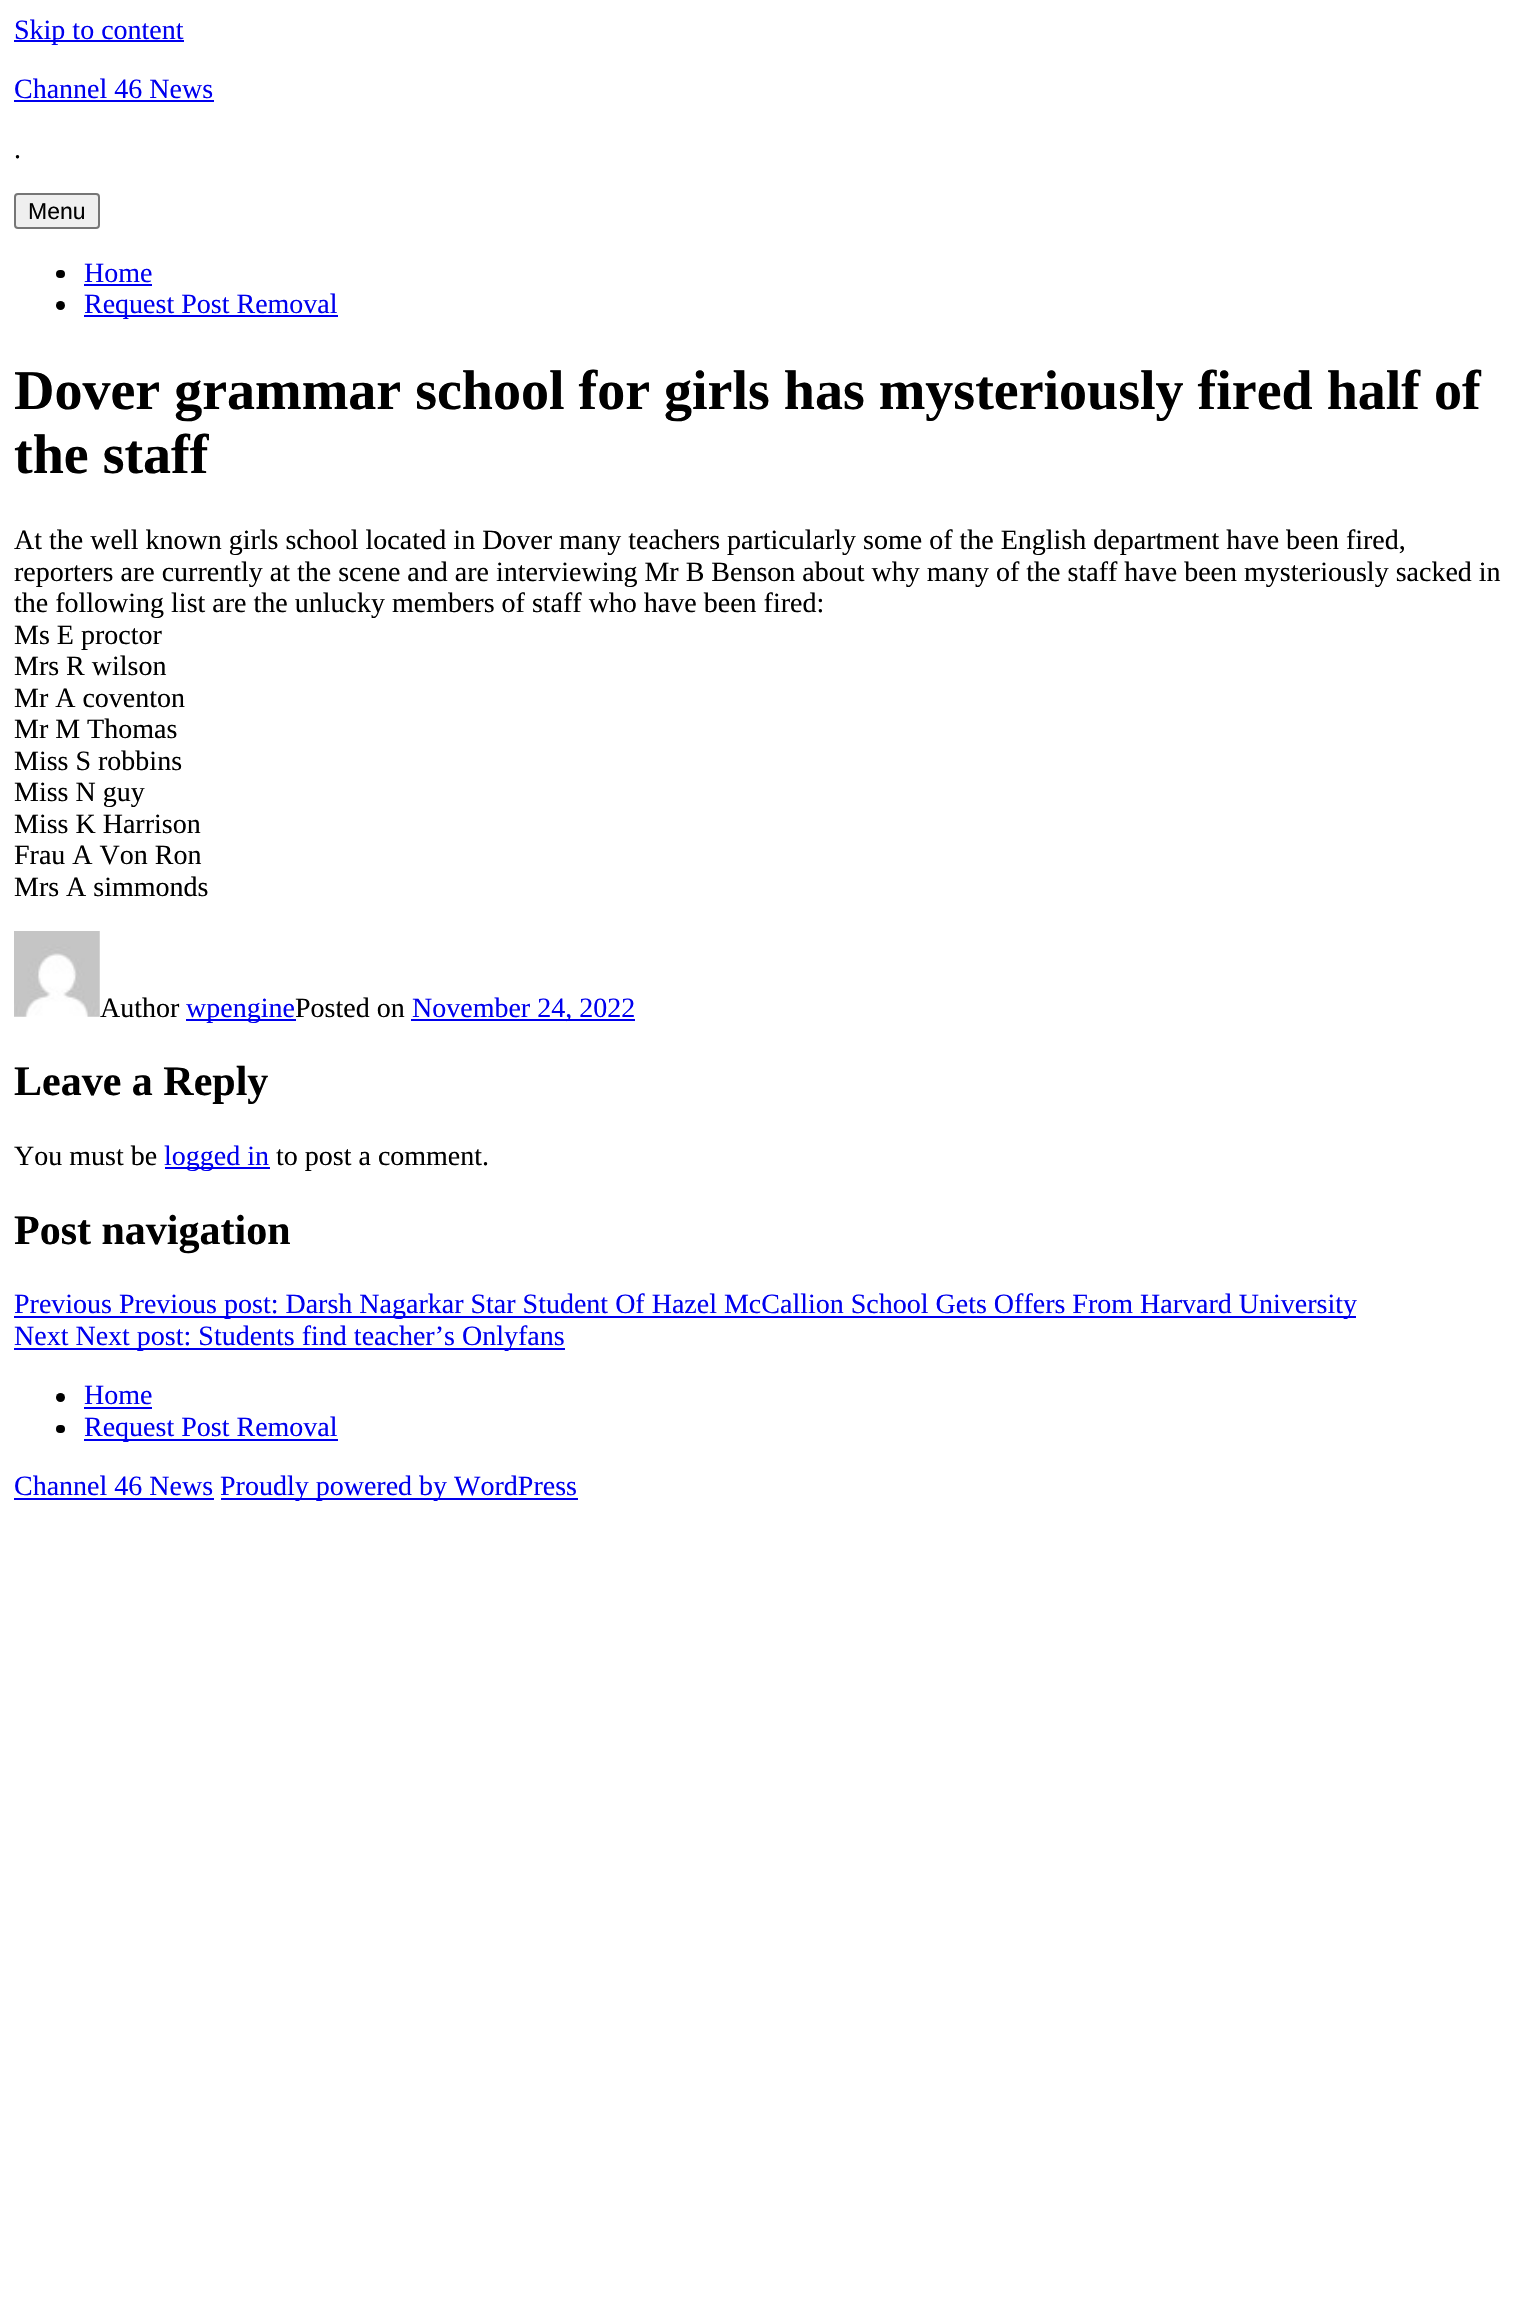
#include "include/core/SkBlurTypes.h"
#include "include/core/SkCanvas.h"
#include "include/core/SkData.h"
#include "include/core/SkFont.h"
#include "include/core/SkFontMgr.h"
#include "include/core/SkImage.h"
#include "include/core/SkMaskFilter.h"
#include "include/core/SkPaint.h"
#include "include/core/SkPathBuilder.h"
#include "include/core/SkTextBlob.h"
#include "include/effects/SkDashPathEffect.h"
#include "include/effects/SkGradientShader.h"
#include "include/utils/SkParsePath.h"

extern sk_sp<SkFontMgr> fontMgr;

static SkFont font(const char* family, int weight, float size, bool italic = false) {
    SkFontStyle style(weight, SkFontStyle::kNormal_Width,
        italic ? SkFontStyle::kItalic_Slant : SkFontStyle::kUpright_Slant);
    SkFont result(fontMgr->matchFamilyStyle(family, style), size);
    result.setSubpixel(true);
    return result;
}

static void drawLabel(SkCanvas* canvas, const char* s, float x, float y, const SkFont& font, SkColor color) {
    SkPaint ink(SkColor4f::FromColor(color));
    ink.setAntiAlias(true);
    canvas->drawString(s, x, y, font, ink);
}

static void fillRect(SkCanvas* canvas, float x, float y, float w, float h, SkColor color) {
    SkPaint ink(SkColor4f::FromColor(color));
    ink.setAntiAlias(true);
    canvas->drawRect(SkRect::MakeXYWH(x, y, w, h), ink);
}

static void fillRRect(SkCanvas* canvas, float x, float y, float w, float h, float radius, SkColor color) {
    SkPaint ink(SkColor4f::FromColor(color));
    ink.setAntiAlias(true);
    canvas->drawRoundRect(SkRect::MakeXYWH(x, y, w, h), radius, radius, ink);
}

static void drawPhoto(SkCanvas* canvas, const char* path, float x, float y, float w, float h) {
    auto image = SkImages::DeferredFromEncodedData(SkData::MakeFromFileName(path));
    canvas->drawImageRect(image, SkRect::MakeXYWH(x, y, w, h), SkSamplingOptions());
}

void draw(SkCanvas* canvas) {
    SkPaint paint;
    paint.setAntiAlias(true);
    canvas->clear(0xFFFFFFFF);
    fillRect(canvas, 14, 40, 170, 2, 0xFF0000EE);
    SkFont font1 = font("Liberation Serif", 400, 28);
    drawLabel(canvas, "Skip to content", 14, 39, font1, 0xFF0000EE);
    drawLabel(canvas, "Channel 46 News", 14, 98, font1, 0xFF0000EE);
    fillRect(canvas, 14, 100, 200, 2, 0xFF0000EE);
    drawLabel(canvas, ".", 14, 158, font1, 0xFF000000);
    paint.setColor(0xFFEFEFEF);
    canvas->drawRoundRect(SkRect::MakeXYWH(15, 194, 84, 34), 3, 3, paint);
    paint.setStroke(true);
    paint.setStrokeWidth(2);
    paint.setColor(0xFF767676);
    canvas->drawRoundRect(SkRect::MakeXYWH(15, 194, 84, 34), 3, 3, paint);
    SkFont font2 = font("Liberation Sans", 400, 23);
    drawLabel(canvas, "Menu", 28, 219, font2, 0xFF000000);
    fillRRect(canvas, 56, 270, 9, 8, 4, 0xFF000000);
    drawLabel(canvas, "Home", 84, 282, font1, 0xFF0000EE);
    fillRect(canvas, 84, 284, 68, 2, 0xFF0000EE);
    paint.setStroke(false);
    paint.setColor(0xFF000000);
    canvas->drawCircle(60.5f, 305.5f, 4.5f, paint);
    fillRect(canvas, 84, 315, 254, 2, 0xFF0000EE);
    drawLabel(canvas, "Request Post Removal", 84, 313, font1, 0xFF0000EE);
    SkFont font3 = font("Liberation Serif", 700, 56);
    drawLabel(canvas, "Dover grammar school for girls has mysteriously fired half of", 14, 409, font3, 0xFF000000);
    drawLabel(canvas, "the staff", 14, 473, font3, 0xFF000000);
    drawLabel(canvas, "At the well known girls school located in Dover many teachers particularly some of the English department have been fired,", 14, 549, font1, 0xFF000000);
    drawLabel(canvas, "reporters are currently at the scene and are interviewing Mr B Benson about why many of the staff have been mysteriously sacked in", 14, 581, font1, 0xFF000000);
    drawLabel(canvas, "the following list are the unlucky members of staff who have been fired:", 14, 612, font1, 0xFF000000);
    drawLabel(canvas, "Ms E proctor", 14, 644, font1, 0xFF000000);
    drawLabel(canvas, "Mrs R wilson", 14, 675, font1, 0xFF000000);
    drawLabel(canvas, "Mr A coventon", 14, 707, font1, 0xFF000000);
    drawLabel(canvas, "Mr M Thomas", 14, 738, font1, 0xFF000000);
    drawLabel(canvas, "Miss S robbins", 14, 770, font1, 0xFF000000);
    drawLabel(canvas, "Miss N guy", 14, 801, font1, 0xFF000000);
    drawLabel(canvas, "Miss K Harrison", 14, 833, font1, 0xFF000000);
    drawLabel(canvas, "Frau A Von Ron", 14, 864, font1, 0xFF000000);
    drawLabel(canvas, "Mrs A simmonds", 14, 896, font1, 0xFF000000);
    drawPhoto(canvas, "assets/img1.png", 14, 931, 86, 86);
    drawLabel(canvas, "Author", 100, 1017, font1, 0xFF000000);
    fillRect(canvas, 186, 1019, 110, 2, 0xFF0000EE);
    drawLabel(canvas, "wpengine", 186, 1017, font1, 0xFF0000EE);
    drawLabel(canvas, "Posted on", 295, 1017, font1, 0xFF000000);
    fillRect(canvas, 411, 1019, 224, 2, 0xFF0000EE);
    drawLabel(canvas, "November 24, 2022", 412, 1017, font1, 0xFF0000EE);
    SkFont font4 = font("Liberation Serif", 700, 42);
    drawLabel(canvas, "Leave a Reply", 14, 1095, font4, 0xFF000000);
    drawLabel(canvas, "You must be", 14, 1165, font1, 0xFF000000);
    fillRect(canvas, 165, 1167, 105, 2, 0xFF0000EE);
    drawLabel(canvas, "logged in", 164, 1165, font1, 0xFF0000EE);
    drawLabel(canvas, "to post a comment.", 276, 1165, font1, 0xFF000000);
    drawLabel(canvas, "Post navigation", 14, 1244, font4, 0xFF000000);
    fillRect(canvas, 14, 1316, 1342, 2, 0xFF0000EE);
    drawLabel(canvas, "Previous Previous post: Darsh Nagarkar Star Student Of Hazel McCallion School Gets Offers From Harvard University", 14, 1313, font1, 0xFF0000EE);
    fillRect(canvas, 14, 1348, 551, 2, 0xFF0000EE);
    drawLabel(canvas, "Next Next post: Students find teacher’s Onlyfans", 14, 1345, font1, 0xFF0000EE);
    canvas->drawCircle(60.5f, 1397.5f, 4.5f, paint);
    drawLabel(canvas, "Home", 84, 1404, font1, 0xFF0000EE);
    fillRect(canvas, 84, 1407, 68, 2, 0xFF0000EE);
    fillRRect(canvas, 56, 1425, 9, 8, 4, 0xFF000000);
    fillRect(canvas, 84, 1439, 254, 2, 0xFF0000EE);
    drawLabel(canvas, "Request Post Removal", 84, 1436, font1, 0xFF0000EE);
    drawLabel(canvas, "Channel 46 News", 14, 1495, font1, 0xFF0000EE);
    fillRect(canvas, 14, 1498, 200, 2, 0xFF0000EE);
    fillRect(canvas, 221, 1498, 357, 2, 0xFF0000EE);
    drawLabel(canvas, "Proudly powered by WordPress", 220, 1495, font1, 0xFF0000EE);
}
